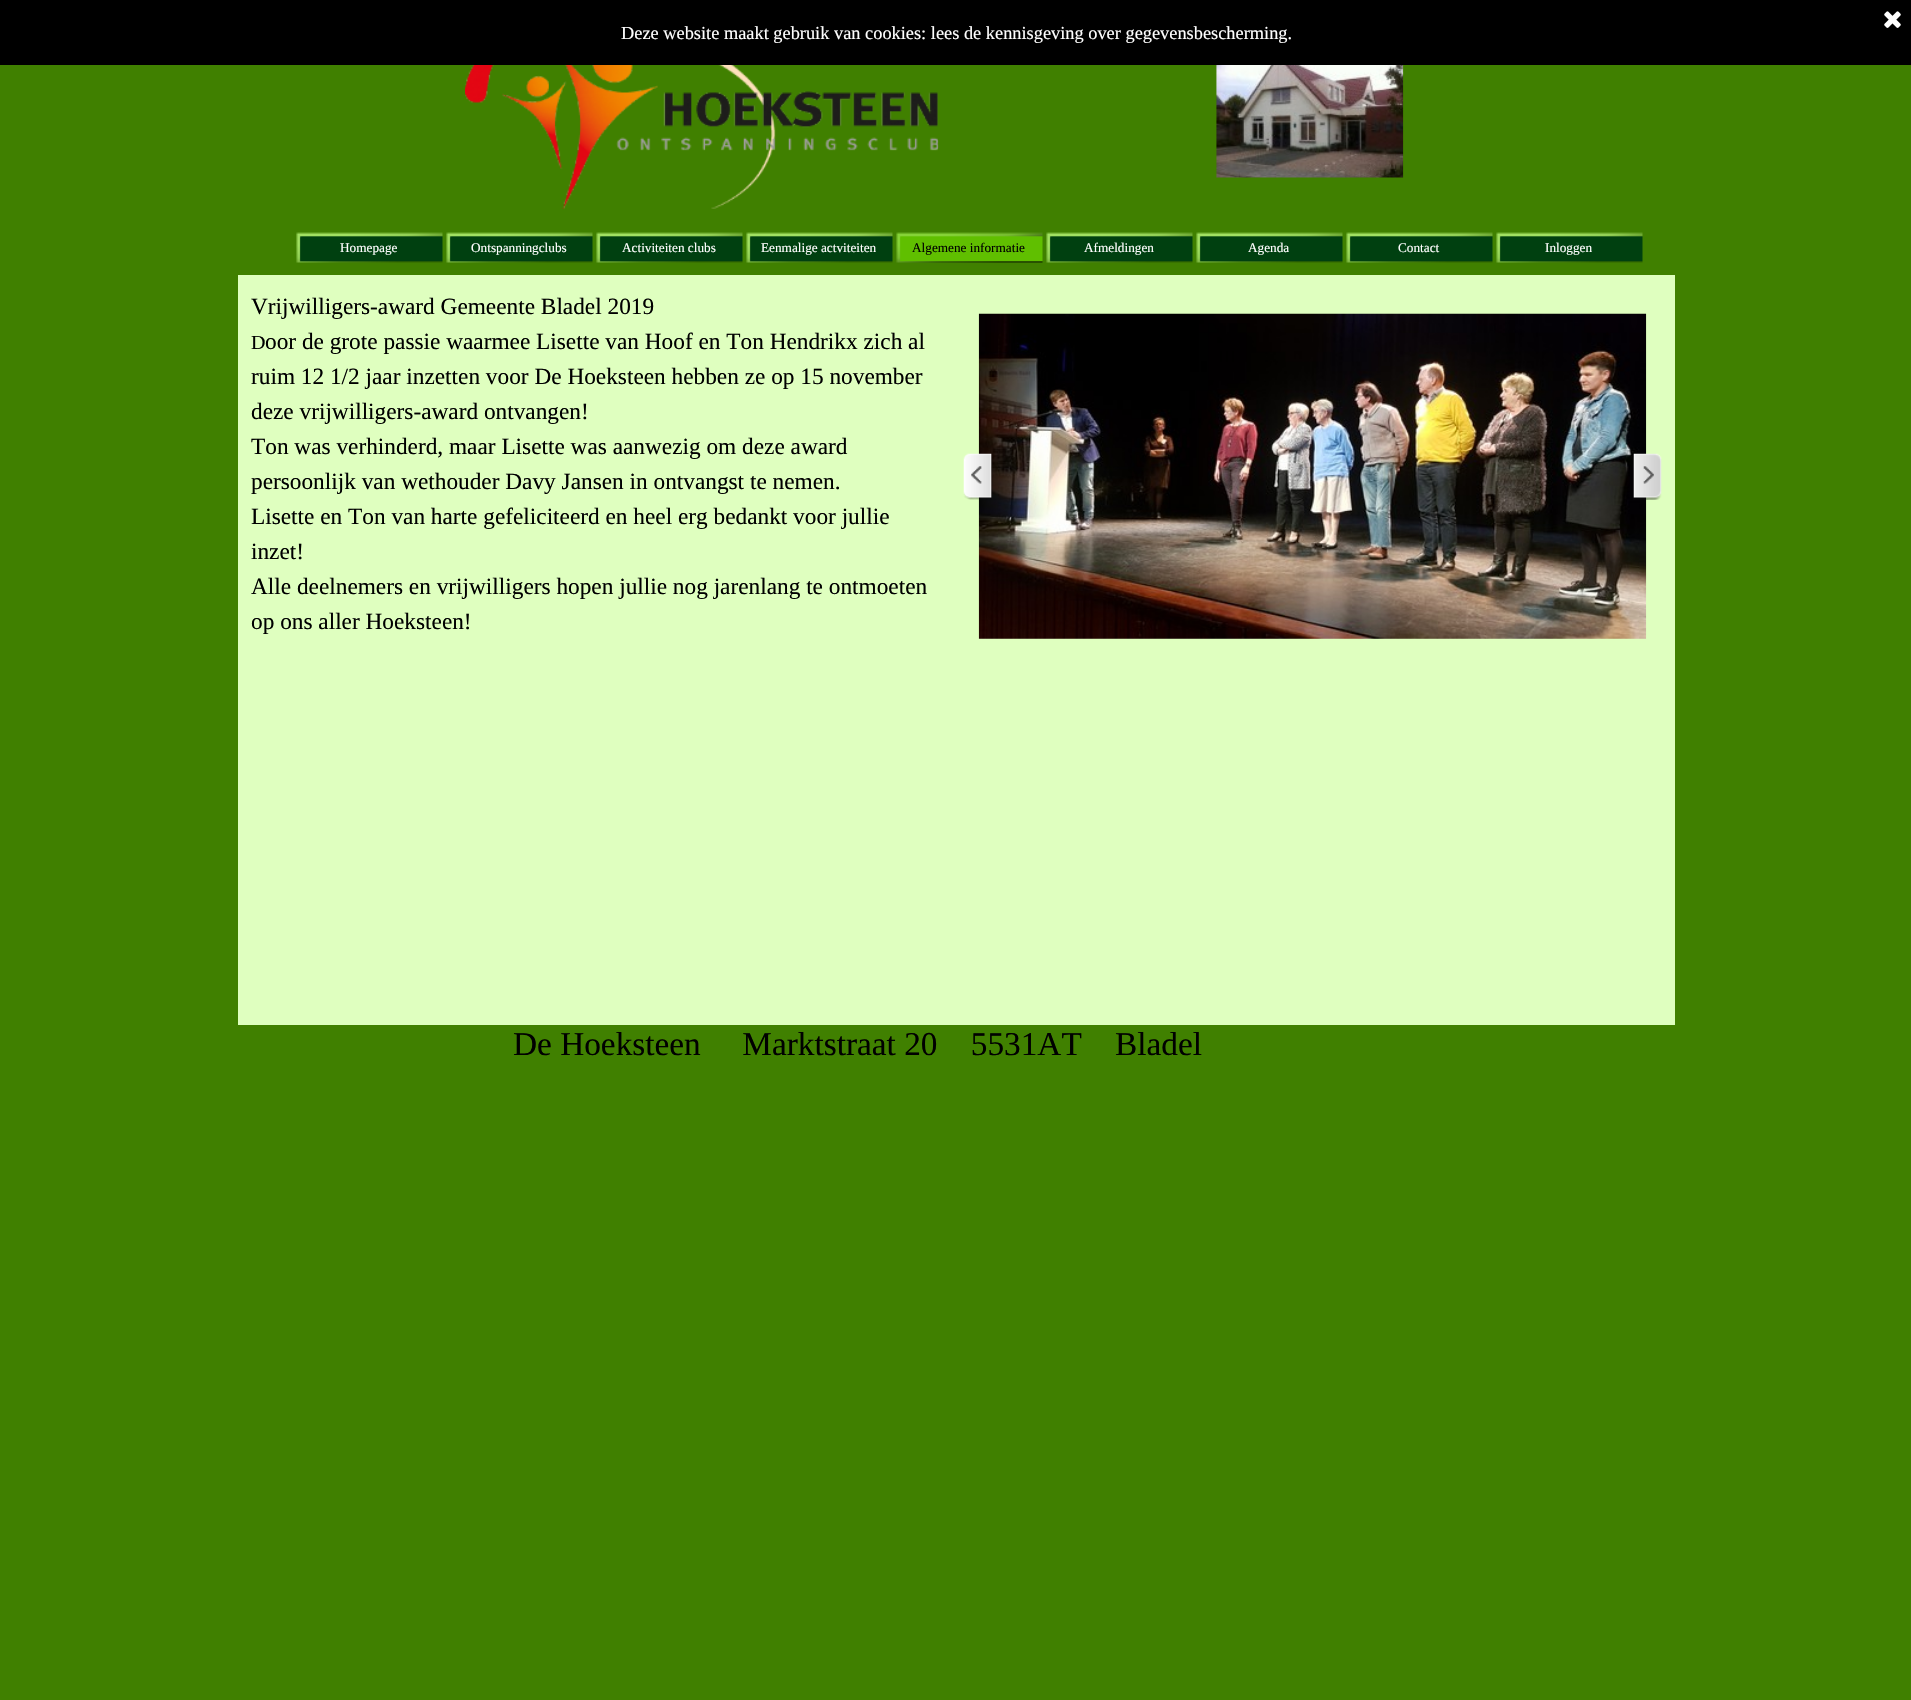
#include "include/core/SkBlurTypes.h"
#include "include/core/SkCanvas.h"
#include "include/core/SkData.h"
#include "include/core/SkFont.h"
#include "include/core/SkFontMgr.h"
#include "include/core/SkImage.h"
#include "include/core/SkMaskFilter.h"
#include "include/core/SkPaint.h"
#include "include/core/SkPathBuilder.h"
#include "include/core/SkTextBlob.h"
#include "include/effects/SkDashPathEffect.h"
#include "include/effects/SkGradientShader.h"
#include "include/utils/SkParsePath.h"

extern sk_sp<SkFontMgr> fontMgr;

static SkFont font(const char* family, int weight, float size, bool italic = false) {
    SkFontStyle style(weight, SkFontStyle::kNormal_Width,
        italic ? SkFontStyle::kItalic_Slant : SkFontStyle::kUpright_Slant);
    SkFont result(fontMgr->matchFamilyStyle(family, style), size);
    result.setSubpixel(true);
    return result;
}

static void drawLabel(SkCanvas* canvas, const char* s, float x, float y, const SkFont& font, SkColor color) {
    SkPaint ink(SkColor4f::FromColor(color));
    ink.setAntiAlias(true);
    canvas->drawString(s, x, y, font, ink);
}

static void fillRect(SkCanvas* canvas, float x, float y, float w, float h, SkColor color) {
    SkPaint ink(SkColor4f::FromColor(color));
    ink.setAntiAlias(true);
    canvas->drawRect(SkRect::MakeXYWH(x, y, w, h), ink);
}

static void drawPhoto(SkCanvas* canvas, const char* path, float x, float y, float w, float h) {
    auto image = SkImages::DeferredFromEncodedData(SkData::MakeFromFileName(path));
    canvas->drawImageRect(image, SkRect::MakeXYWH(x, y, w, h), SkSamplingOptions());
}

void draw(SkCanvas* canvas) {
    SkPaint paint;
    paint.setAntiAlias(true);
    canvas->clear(0xFF408000);
    fillRect(canvas, 0, 0, 1911, 65, 0xFF000000);
    drawPhoto(canvas, "assets/img1.png", 1884, 11, 17, 17);
    SkFont font1 = font("Liberation Serif", 400, 18.35f);
    drawLabel(canvas, "Deze website maakt gebruik van cookies: lees de kennisgeving over gegevensbescherming.", 621, 39, font1, 0xFFFFFFFF);
    drawPhoto(canvas, "assets/img2.png", 465, 65, 474, 144);
    drawPhoto(canvas, "assets/img3.png", 1216, 65, 188, 113);
    drawPhoto(canvas, "assets/img4.png", 296, 232, 147, 31);
    SkFont font2 = font("Liberation Serif", 400, 13.25f);
    drawLabel(canvas, "Homepage", 340, 252, font2, 0xFFFFFFFF);
    drawPhoto(canvas, "assets/img4.png", 446, 232, 147, 31);
    drawLabel(canvas, "Ontspanningclubs", 471, 252, font2, 0xFFFFFFFF);
    drawPhoto(canvas, "assets/img5.png", 596, 232, 147, 31);
    drawLabel(canvas, "Activiteiten clubs", 622, 252, font2, 0xFFFFFFFF);
    drawPhoto(canvas, "assets/img4.png", 746, 232, 147, 31);
    drawLabel(canvas, "Eenmalige actviteiten", 761, 252, font2, 0xFFFFFFFF);
    drawPhoto(canvas, "assets/img6.png", 896, 232, 147, 31);
    drawLabel(canvas, "Algemene informatie", 912, 252, font2, 0xFF000000);
    drawPhoto(canvas, "assets/img4.png", 1046, 232, 147, 31);
    drawLabel(canvas, "Afmeldingen", 1084, 252, font2, 0xFFFFFFFF);
    drawPhoto(canvas, "assets/img4.png", 1196, 232, 147, 31);
    drawLabel(canvas, "Agenda", 1248, 252, font2, 0xFFFFFFFF);
    drawPhoto(canvas, "assets/img4.png", 1346, 232, 147, 31);
    drawLabel(canvas, "Contact", 1398, 252, font2, 0xFFFFFFFF);
    drawPhoto(canvas, "assets/img4.png", 1496, 232, 147, 31);
    drawLabel(canvas, "Inloggen", 1545, 252, font2, 0xFFFFFFFF);
    fillRect(canvas, 238, 275, 1437, 750, 0xFFDFFFBF);
    SkFont font3 = font("Liberation Serif", 400, 23.3f);
    drawLabel(canvas, "Vrijwilligers-award Gemeente Bladel 2019", 251, 314, font3, 0xFF000000);
    SkFont font4 = font("Liberation Serif", 400, 20);
    drawLabel(canvas, "D", 251, 349, font4, 0xFF000000);
    drawLabel(canvas, "oor de grote passie waarmee Lisette van Hoof en Ton Hendrikx zich al", 265, 349, font3, 0xFF000000);
    drawLabel(canvas, "ruim 12 1/2 jaar inzetten voor De Hoeksteen hebben ze op 15 november", 251, 384, font3, 0xFF000000);
    drawLabel(canvas, "deze vrijwilligers-award ontvangen!", 251, 419, font3, 0xFF000000);
    drawLabel(canvas, "Ton was verhinderd, maar Lisette was aanwezig om deze award", 251, 454, font3, 0xFF000000);
    drawLabel(canvas, "persoonlijk van wethouder Davy Jansen in ontvangst te nemen.", 251, 489, font3, 0xFF000000);
    drawLabel(canvas, "Lisette en Ton van harte gefeliciteerd en heel erg bedankt voor jullie", 251, 524, font3, 0xFF000000);
    drawLabel(canvas, "inzet!", 251, 559, font3, 0xFF000000);
    drawLabel(canvas, "Alle deelnemers en vrijwilligers hopen jullie nog jarenlang te ontmoeten", 251, 594, font3, 0xFF000000);
    drawLabel(canvas, "op ons aller Hoeksteen!", 251, 629, font3, 0xFF000000);
    drawPhoto(canvas, "assets/img7.png", 978, 313, 669, 326);
    drawPhoto(canvas, "assets/img8.png", 963, 453, 30, 47);
    drawPhoto(canvas, "assets/img9.png", 1633, 453, 29, 47);
    SkFont font5 = font("Liberation Serif", 400, 33.3f);
    drawLabel(canvas, "De Hoeksteen     Marktstraat 20    5531AT    Bladel", 513, 1055, font5, 0xFF000000);
}
